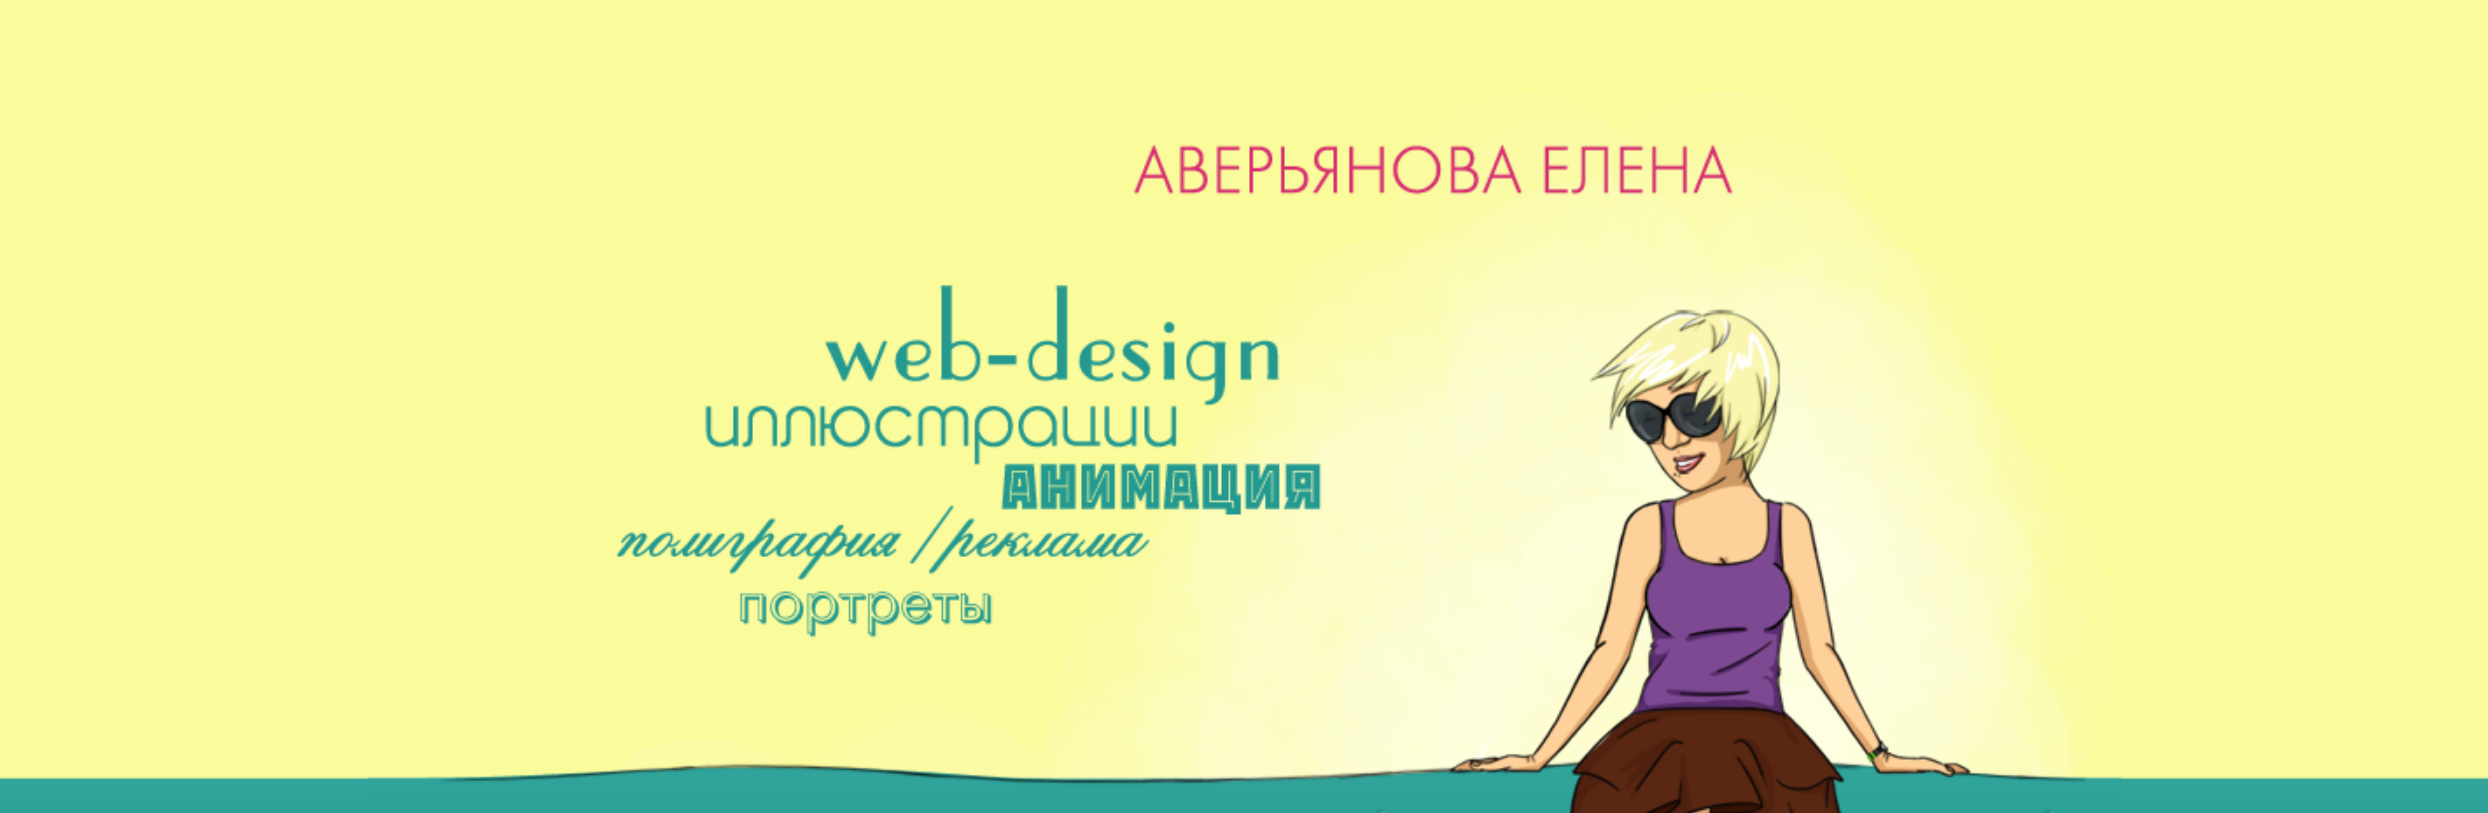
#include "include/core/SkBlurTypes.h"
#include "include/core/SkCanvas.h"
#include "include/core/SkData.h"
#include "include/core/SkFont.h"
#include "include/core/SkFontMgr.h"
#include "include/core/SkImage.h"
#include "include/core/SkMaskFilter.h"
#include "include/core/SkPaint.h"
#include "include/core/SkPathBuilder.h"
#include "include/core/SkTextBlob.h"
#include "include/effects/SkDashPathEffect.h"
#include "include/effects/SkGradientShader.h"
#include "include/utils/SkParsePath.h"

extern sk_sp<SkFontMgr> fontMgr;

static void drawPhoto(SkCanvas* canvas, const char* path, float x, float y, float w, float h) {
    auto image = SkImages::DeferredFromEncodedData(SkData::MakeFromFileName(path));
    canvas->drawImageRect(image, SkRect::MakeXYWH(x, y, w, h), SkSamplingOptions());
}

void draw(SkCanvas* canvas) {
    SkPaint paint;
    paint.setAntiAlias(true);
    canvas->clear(0xFFFAFB9B);
    drawPhoto(canvas, "assets/img1.png", 0, 776, 2488, 37);
    drawPhoto(canvas, "assets/img2.png", 367, 91, 1754, 722);
    drawPhoto(canvas, "assets/img3.png", 1133, 144, 600, 51);
    drawPhoto(canvas, "assets/img4.png", 824, 284, 456, 122);
    drawPhoto(canvas, "assets/img5.png", 704, 405, 473, 61);
    drawPhoto(canvas, "assets/img6.png", 1000, 463, 322, 52);
    drawPhoto(canvas, "assets/img7.png", 615, 505, 536, 75);
    drawPhoto(canvas, "assets/img8.png", 739, 591, 254, 47);
}
